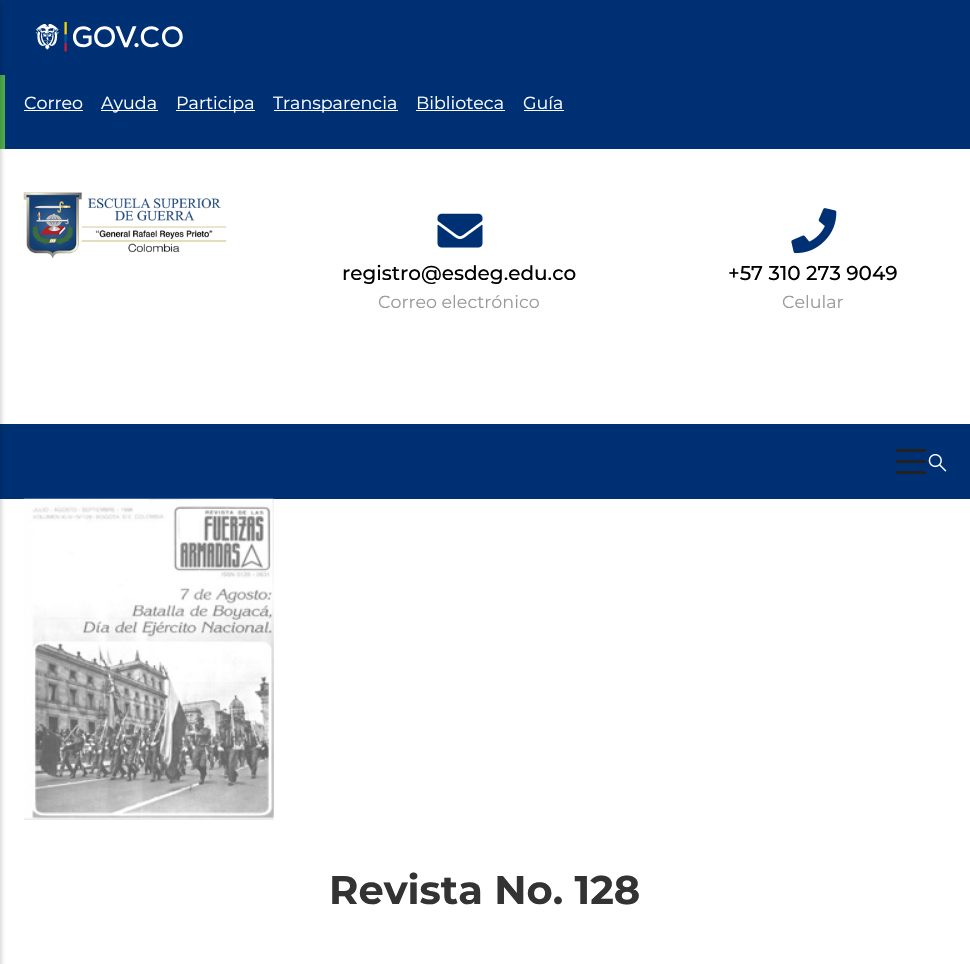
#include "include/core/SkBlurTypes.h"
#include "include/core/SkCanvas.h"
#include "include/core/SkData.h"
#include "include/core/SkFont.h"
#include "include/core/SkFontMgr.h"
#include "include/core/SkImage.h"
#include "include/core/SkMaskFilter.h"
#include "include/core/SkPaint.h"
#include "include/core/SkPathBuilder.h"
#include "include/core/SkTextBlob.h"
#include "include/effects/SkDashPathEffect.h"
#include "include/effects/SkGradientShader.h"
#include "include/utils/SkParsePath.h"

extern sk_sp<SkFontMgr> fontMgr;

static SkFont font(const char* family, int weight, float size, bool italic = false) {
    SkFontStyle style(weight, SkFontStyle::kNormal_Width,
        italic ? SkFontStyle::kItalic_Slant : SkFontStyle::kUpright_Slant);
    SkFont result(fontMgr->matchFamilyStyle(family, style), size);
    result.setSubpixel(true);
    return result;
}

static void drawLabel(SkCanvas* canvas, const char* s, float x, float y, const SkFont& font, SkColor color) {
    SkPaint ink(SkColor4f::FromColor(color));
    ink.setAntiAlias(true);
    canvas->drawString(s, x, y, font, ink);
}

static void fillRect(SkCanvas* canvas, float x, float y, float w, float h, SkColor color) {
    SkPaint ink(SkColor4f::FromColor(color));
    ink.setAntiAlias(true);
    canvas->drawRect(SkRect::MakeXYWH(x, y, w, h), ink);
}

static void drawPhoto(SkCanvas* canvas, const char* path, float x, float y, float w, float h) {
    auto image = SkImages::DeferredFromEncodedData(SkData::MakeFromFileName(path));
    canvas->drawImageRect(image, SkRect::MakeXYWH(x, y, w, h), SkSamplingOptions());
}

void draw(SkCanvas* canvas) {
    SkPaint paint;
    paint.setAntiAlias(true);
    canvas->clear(0xFFFFFFFF);
    fillRect(canvas, 0, 424, 970, 75, 0xFF003074);
    fillRect(canvas, 0, 0, 970, 149, 0xFF003074);
    fillRect(canvas, 0, 75, 5, 74, 0xFF50AF4D);
    paint.setColor(0x33000000);
    paint.setMaskFilter(SkMaskFilter::MakeBlur(kNormal_SkBlurStyle, 2.5f));
    canvas->drawRect(SkRect::MakeXYWH(-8, 4, 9, 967), paint);
    paint.setMaskFilter(nullptr);
    fillRect(canvas, 896, 449, 30, 3, 0xFF222222);
    fillRect(canvas, 896, 460, 30, 3, 0xFF222222);
    fillRect(canvas, 896, 471, 30, 3, 0xFF222222);
    drawPhoto(canvas, "assets/img1.png", 928, 454, 19, 18);
    drawPhoto(canvas, "assets/img2.png", 35, 21, 148, 31);
    SkFont font1 = font("Montserrat", 400, 17.5f);
    drawLabel(canvas, "Correo", 24, 109, font1, 0xFFFFFFFF);
    fillRect(canvas, 24, 110, 59, 1, 0xFFFFFFFF);
    fillRect(canvas, 101, 110, 57, 1, 0xFFFFFFFF);
    drawLabel(canvas, "Ayuda", 101, 109, font1, 0xFFFFFFFF);
    fillRect(canvas, 176, 110, 79, 1, 0xFFFFFFFF);
    drawLabel(canvas, "Participa", 176, 109, font1, 0xFFFFFFFF);
    fillRect(canvas, 274, 110, 124, 1, 0xFFFFFFFF);
    drawLabel(canvas, "Transparencia", 273, 109, font1, 0xFFFFFFFF);
    drawLabel(canvas, "Biblioteca", 416, 109, font1, 0xFFFFFFFF);
    fillRect(canvas, 416, 110, 89, 1, 0xFFFFFFFF);
    drawLabel(canvas, "Guía", 523, 109, font1, 0xFFFFFFFF);
    fillRect(canvas, 524, 110, 40, 1, 0xFFFFFFFF);
    drawPhoto(canvas, "assets/img3.png", 23, 192, 204, 66);
    drawPhoto(canvas, "assets/img4.png", 437, 213, 46, 35);
    SkFont font2 = font("Montserrat", 500, 20);
    drawLabel(canvas, "registro@esdeg.edu.co", 342, 280, font2, 0xFF000000);
    drawLabel(canvas, "Correo electrónico", 378, 308, font1, 0xFF999999);
    drawPhoto(canvas, "assets/img5.png", 791, 208, 46, 46);
    drawLabel(canvas, "+57 310 273 9049", 728, 280, font2, 0xFF000000);
    drawLabel(canvas, "Celular", 782, 308, font1, 0xFF999999);
    drawPhoto(canvas, "assets/img6.png", 23, 498, 251, 322);
    SkFont font3 = font("Montserrat", 700, 40);
    drawLabel(canvas, "Revista No. 128", 329, 904, font3, 0xFF333333);
}
